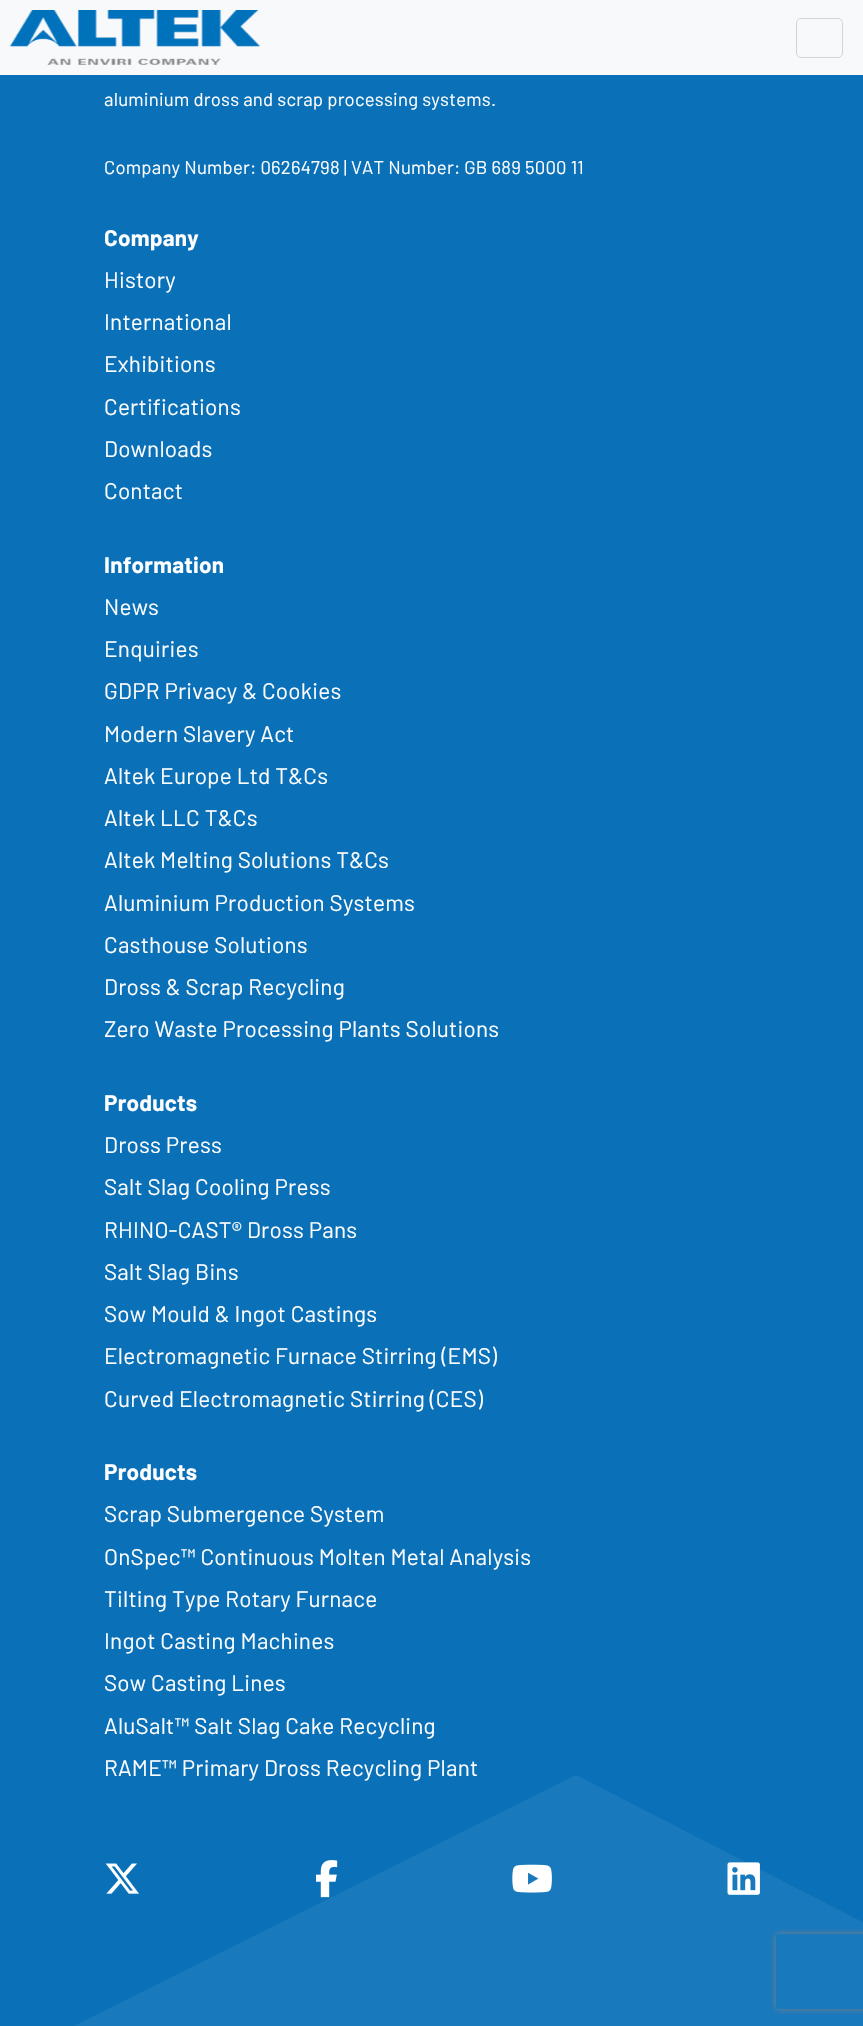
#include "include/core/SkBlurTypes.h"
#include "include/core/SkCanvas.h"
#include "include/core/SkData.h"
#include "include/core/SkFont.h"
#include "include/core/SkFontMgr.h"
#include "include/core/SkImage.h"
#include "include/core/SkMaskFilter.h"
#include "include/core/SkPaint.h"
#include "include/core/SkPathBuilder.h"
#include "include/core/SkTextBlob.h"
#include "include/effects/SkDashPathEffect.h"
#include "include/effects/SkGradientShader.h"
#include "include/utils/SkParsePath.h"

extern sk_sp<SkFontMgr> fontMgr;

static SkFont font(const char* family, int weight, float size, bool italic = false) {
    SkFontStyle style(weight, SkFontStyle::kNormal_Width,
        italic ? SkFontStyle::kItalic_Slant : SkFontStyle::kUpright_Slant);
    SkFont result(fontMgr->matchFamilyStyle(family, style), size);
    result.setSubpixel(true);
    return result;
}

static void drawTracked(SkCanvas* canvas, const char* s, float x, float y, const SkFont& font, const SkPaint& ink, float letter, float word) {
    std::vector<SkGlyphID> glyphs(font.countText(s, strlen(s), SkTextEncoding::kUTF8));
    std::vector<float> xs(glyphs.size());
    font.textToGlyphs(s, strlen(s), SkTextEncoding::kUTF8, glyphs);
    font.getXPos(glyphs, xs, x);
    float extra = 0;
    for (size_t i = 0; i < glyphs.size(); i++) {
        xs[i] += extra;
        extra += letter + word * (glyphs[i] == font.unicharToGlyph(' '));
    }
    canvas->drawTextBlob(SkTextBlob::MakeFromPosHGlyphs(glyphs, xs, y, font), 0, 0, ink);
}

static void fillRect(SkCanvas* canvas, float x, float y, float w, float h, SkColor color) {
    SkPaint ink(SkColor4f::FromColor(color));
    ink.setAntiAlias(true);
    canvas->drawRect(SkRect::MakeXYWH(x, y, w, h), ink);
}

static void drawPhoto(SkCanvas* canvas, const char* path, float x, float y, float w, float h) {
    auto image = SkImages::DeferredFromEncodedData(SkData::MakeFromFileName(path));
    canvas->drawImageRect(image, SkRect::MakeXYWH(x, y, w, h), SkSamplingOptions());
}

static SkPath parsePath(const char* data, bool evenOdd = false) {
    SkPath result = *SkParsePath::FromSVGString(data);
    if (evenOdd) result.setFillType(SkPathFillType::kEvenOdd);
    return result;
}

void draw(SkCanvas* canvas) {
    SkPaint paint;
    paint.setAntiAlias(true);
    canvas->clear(0xFF0A70B8);
    fillRect(canvas, 0, 0, 863, 75, 0xFFF8F9FA);
    drawPhoto(canvas, "assets/img1.png", 9, 10, 251, 55);
    paint.setStroke(true);
    paint.setStrokeWidth(1);
    paint.setColor(0xFFD3D4D5);
    canvas->drawRoundRect(SkRect::MakeXYWH(796.5f, 18.5f, 46, 39), 4.5f, 4.5f, paint);
    SkFont font1 = font("Barlow", 400, 18.5f);
    paint.setStroke(false);
    paint.setColor(0xFFFFFFFF);
    drawTracked(canvas, "aluminium dross and scrap processing systems.", 104, 106, font1, paint, 0.22f, 0);
    drawTracked(canvas, "Company Number: 06264798 | VAT Number: GB 689 5000 11", 104, 174, font1, paint, 0.22f, 0);
    SkFont font2 = font("Barlow", 700, 22.5f);
    drawTracked(canvas, "Company", 104, 246, font2, paint, 0.22f, 0);
    SkFont font3 = font("Barlow", 400, 22.5f);
    drawTracked(canvas, "History", 104, 288, font3, paint, 0.22f, 0);
    drawTracked(canvas, "International", 104, 330, font3, paint, 0.22f, 0);
    drawTracked(canvas, "Exhibitions", 104, 372, font3, paint, 0.22f, 0);
    drawTracked(canvas, "Certifications", 104, 415, font3, paint, 0.22f, 0);
    drawTracked(canvas, "Downloads", 104, 457, font3, paint, 0.22f, 0);
    drawTracked(canvas, "Contact", 104, 499, font3, paint, 0.22f, 0);
    drawTracked(canvas, "Information", 104, 573, font2, paint, 0.22f, 0);
    drawTracked(canvas, "News", 104, 615, font3, paint, 0.22f, 0);
    drawTracked(canvas, "Enquiries", 104, 657, font3, paint, 0.22f, 0);
    drawTracked(canvas, "GDPR Privacy & Cookies", 104, 699, font3, paint, 0.22f, 0);
    drawTracked(canvas, "Modern Slavery Act", 104, 742, font3, paint, 0.22f, 0);
    drawTracked(canvas, "Altek Europe Ltd T&Cs", 104, 784, font3, paint, 0.22f, 0);
    drawTracked(canvas, "Altek LLC T&Cs", 104, 826, font3, paint, 0.22f, 0);
    drawTracked(canvas, "Altek Melting Solutions T&Cs", 104, 868, font3, paint, 0.22f, 0);
    drawTracked(canvas, "Aluminium Production Systems", 104, 911, font3, paint, 0.22f, 0);
    drawTracked(canvas, "Casthouse Solutions", 104, 953, font3, paint, 0.22f, 0);
    drawTracked(canvas, "Dross & Scrap Recycling", 104, 995, font3, paint, 0.22f, 0);
    drawTracked(canvas, "Zero Waste Processing Plants Solutions", 104, 1037, font3, paint, 0.22f, 0);
    drawTracked(canvas, "Products", 104, 1111, font2, paint, 0.22f, 0);
    drawTracked(canvas, "Dross Press", 104, 1153, font3, paint, 0.22f, 0);
    drawTracked(canvas, "Salt Slag Cooling Press", 104, 1195, font3, paint, 0.22f, 0);
    drawTracked(canvas, "RHINO-CAST® Dross Pans", 104, 1238, font3, paint, 0.22f, 0);
    drawTracked(canvas, "Salt Slag Bins", 104, 1280, font3, paint, 0.22f, 0);
    drawTracked(canvas, "Sow Mould & Ingot Castings", 104, 1322, font3, paint, 0.22f, 0);
    drawTracked(canvas, "Electromagnetic Furnace Stirring (EMS)", 104, 1364, font3, paint, 0.22f, 0);
    drawTracked(canvas, "Curved Electromagnetic Stirring (CES)", 104, 1407, font3, paint, 0.22f, 0);
    drawTracked(canvas, "Products", 104, 1480, font2, paint, 0.22f, 0);
    drawTracked(canvas, "Scrap Submergence System", 104, 1522, font3, paint, 0.22f, 0);
    drawTracked(canvas, "OnSpec™ Continuous Molten Metal Analysis", 104, 1565, font3, paint, 0.22f, 0);
    drawTracked(canvas, "Tilting Type Rotary Furnace", 104, 1607, font3, paint, 0.22f, 0);
    drawTracked(canvas, "Ingot Casting Machines", 104, 1649, font3, paint, 0.22f, 0);
    drawTracked(canvas, "Sow Casting Lines", 104, 1691, font3, paint, 0.22f, 0);
    drawTracked(canvas, "AluSalt™ Salt Slag Cake Recycling", 104, 1734, font3, paint, 0.22f, 0);
    paint.setColor(0xFF1879BD);
    canvas->drawPath(parsePath("M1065 2026H74L576 1775Z"), paint);
    paint.setColor(0xFFFFFFFF);
    drawTracked(canvas, "RAME™ Primary Dross Recycling Plant", 104, 1776, font3, paint, 0.22f, 0);
    drawPhoto(canvas, "assets/img2.png", 105, 1863, 34, 31);
    drawPhoto(canvas, "assets/img3.png", 316, 1860, 22, 38);
    drawPhoto(canvas, "assets/img4.png", 512, 1864, 40, 29);
    drawPhoto(canvas, "assets/img5.png", 727, 1862, 33, 33);
    canvas->save();
    canvas->clipPath(parsePath("M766 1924H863V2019H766ZM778.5 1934H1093.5C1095 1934 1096 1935 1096 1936.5V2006.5C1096 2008 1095 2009 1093.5 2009H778.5C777 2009 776 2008 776 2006.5V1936.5C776 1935 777 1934 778.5 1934Z", true), true);
    paint.setColor(0xFF808080);
    paint.setMaskFilter(SkMaskFilter::MakeBlur(kNormal_SkBlurStyle, 3));
    canvas->drawRoundRect(SkRect::MakeXYWH(776, 1934, 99, 75), 2.5f, 2.5f, paint);
    paint.setMaskFilter(nullptr);
    canvas->restore();
}
